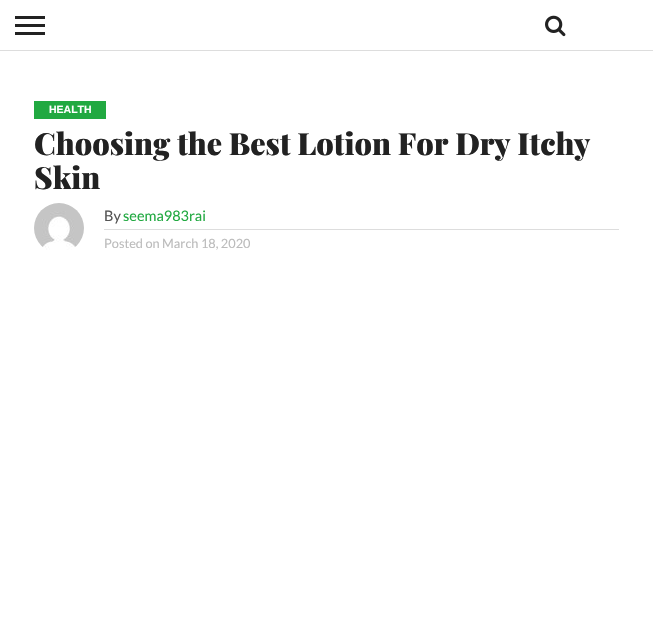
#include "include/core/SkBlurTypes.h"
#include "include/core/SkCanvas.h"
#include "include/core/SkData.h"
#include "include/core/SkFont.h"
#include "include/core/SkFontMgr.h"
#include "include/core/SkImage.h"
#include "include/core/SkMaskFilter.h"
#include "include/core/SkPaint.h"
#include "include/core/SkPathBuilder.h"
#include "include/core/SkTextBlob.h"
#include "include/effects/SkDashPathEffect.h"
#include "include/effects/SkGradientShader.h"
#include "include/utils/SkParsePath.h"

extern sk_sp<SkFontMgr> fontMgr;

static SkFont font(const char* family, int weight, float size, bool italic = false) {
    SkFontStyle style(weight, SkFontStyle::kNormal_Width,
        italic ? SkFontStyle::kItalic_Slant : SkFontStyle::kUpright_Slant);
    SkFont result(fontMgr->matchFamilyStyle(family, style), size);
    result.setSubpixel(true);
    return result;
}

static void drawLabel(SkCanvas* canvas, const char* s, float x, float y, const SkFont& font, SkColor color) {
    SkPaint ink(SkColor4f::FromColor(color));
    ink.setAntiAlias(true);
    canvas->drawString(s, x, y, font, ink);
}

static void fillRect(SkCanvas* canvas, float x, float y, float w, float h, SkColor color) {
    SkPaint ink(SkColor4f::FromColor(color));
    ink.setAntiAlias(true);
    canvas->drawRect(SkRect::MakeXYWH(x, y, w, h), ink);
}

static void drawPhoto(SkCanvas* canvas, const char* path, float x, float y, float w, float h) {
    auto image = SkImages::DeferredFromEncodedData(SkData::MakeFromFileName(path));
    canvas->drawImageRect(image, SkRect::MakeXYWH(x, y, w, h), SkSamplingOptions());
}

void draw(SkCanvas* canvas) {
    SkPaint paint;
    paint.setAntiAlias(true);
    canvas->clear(0xFFFFFFFF);
    fillRect(canvas, 0, 50, 653, 1, 0xFFDDDDDD);
    fillRect(canvas, 15, 16, 30, 3, 0xFF222222);
    fillRect(canvas, 15, 24, 30, 3, 0xFF222222);
    fillRect(canvas, 15, 32, 30, 3, 0xFF222222);
    drawPhoto(canvas, "assets/img1.png", 545, 15, 21, 22);
    fillRect(canvas, 34, 101, 72, 18, 0xFF21A941);
    SkFont font1 = font("Liberation Sans", 700, 10.5f);
    drawLabel(canvas, "HEALTH", 49, 113, font1, 0xFFFFFFFF);
    SkFont font2 = font("Playfair Display", 900, 30.4f);
    drawLabel(canvas, "Choosing the Best Lotion For Dry Itchy", 34, 155, font2, 0xFF222222);
    drawLabel(canvas, "Skin", 34, 189, font2, 0xFF222222);
    drawPhoto(canvas, "assets/img2.png", 34, 203, 50, 47);
    fillRect(canvas, 104, 229, 515, 1, 0xFFDDDDDD);
    SkFont font3 = font("Lato", 400, 14.5f);
    drawLabel(canvas, "By", 104, 221, font3, 0xFF555555);
    drawLabel(canvas, "seema983rai", 123, 221, font3, 0xFF21A941);
    SkFont font4 = font("Lato", 400, 12.75f);
    drawLabel(canvas, "Posted on March 18, 2020", 104, 248, font4, 0xFFBBBBBB);
}
